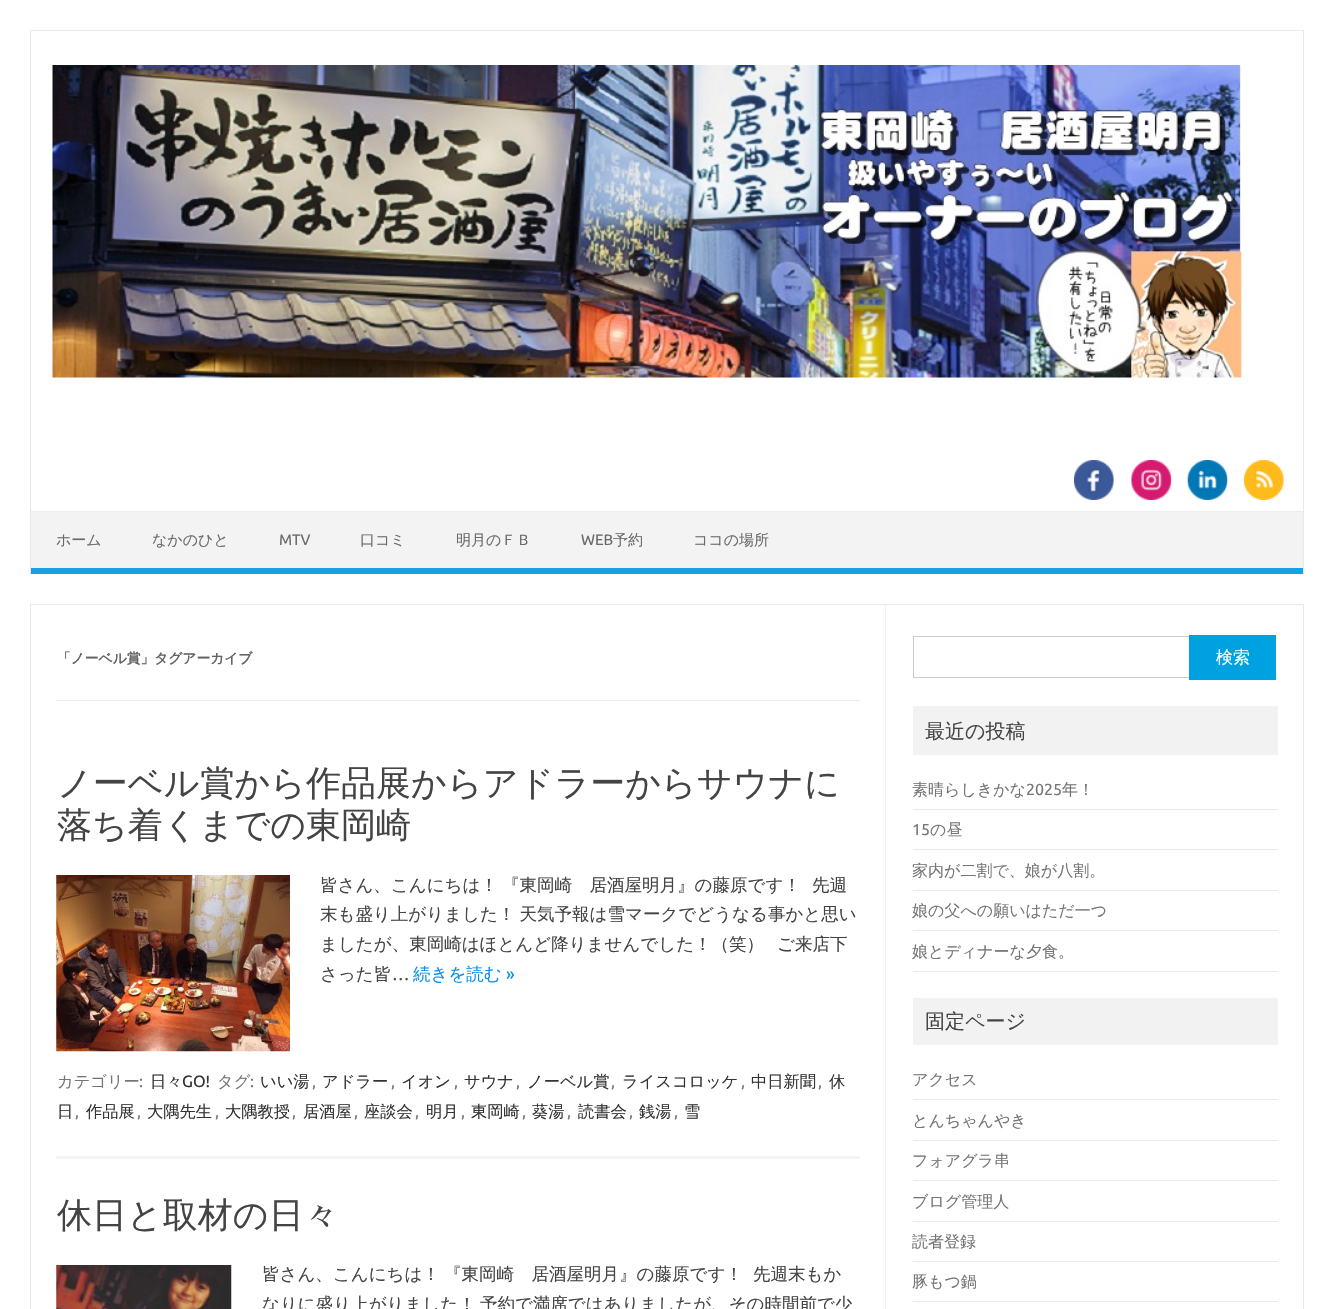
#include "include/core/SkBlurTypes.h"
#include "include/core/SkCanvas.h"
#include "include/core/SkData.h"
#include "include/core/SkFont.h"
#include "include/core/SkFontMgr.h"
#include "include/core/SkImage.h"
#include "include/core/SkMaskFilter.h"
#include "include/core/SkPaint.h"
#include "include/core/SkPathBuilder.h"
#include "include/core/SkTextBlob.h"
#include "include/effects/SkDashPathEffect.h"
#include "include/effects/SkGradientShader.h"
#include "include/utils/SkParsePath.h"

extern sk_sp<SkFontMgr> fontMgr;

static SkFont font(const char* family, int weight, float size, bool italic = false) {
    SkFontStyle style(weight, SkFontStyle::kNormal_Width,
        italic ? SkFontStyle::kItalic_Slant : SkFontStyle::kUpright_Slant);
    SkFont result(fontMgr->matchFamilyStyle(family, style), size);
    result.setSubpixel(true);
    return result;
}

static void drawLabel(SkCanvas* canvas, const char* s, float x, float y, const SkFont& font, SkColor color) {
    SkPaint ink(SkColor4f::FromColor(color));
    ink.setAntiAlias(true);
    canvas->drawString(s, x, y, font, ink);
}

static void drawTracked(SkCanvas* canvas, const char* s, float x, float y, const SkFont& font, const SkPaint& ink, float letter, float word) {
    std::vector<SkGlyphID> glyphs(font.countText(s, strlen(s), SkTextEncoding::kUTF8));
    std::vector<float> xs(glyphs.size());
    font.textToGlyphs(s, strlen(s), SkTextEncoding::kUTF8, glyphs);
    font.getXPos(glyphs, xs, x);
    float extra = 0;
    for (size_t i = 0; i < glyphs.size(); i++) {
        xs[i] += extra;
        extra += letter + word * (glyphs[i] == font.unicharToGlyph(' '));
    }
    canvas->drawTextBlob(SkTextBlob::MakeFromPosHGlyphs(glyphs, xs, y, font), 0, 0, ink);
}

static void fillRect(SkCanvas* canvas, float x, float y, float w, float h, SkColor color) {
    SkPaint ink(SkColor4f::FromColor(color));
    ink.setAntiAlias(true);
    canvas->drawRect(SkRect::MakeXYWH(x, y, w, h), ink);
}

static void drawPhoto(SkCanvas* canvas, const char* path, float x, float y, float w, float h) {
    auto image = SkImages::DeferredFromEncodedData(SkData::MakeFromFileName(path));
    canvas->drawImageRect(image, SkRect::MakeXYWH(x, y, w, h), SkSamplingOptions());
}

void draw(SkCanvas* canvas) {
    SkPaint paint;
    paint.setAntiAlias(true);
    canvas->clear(0xFFFFFFFF);
    fillRect(canvas, 30, 30, 1274, 1, 0xFFE9E9E9);
    fillRect(canvas, 1303, 30, 1, 544, 0xFFE9E9E9);
    fillRect(canvas, 30, 30, 1, 544, 0xFFE9E9E9);
    drawPhoto(canvas, "assets/img1.png", 52, 65, 1190, 313);
    drawPhoto(canvas, "assets/img2.png", 1073, 460, 41, 40);
    drawPhoto(canvas, "assets/img3.png", 1131, 460, 41, 40);
    drawPhoto(canvas, "assets/img4.png", 1187, 460, 41, 40);
    drawPhoto(canvas, "assets/img5.png", 1243, 460, 41, 40);
    fillRect(canvas, 31, 512, 1272, 56, 0xFFF3F3F3);
    fillRect(canvas, 31, 511, 1272, 1, 0xFFEDEDED);
    fillRect(canvas, 31, 568, 1272, 6, 0xFF16A1E7);
    SkFont font1 = font("WenQuanYi Zen Hei", 500, 15);
    drawLabel(canvas, "ホーム", 56, 545, font1, 0xFF6A6A6A);
    drawLabel(canvas, "なかのひと", 152, 545, font1, 0xFF6A6A6A);
    SkFont font2 = font("Ubuntu", 400, 15);
    drawLabel(canvas, "MTV", 279, 545, font2, 0xFF6A6A6A);
    drawLabel(canvas, "口コミ", 360, 545, font1, 0xFF6A6A6A);
    drawLabel(canvas, "明月のＦＢ", 456, 545, font1, 0xFF6A6A6A);
    drawLabel(canvas, "WEB", 581, 545, font2, 0xFF6A6A6A);
    drawLabel(canvas, "予約", 613, 545, font1, 0xFF6A6A6A);
    drawLabel(canvas, "ココの場所", 693, 545, font1, 0xFF6A6A6A);
    paint.setStroke(true);
    paint.setStrokeWidth(1);
    paint.setColor(0xFFE9E9E9);
    canvas->drawRect(SkRect::MakeXYWH(30.5f, 604.5f, 1273, 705), paint);
    fillRect(canvas, 885, 605, 1, 704, 0xFFF1F1F1);
    fillRect(canvas, 56, 700, 804, 1, 0xFFEDEDED);
    SkFont font3 = font("WenQuanYi Zen Hei", 700, 13.75f);
    drawLabel(canvas, "「ノーベル賞」タグアーカイブ", 57, 663, font3, 0xFF636363);
    fillRect(canvas, 56, 1156, 804, 3, 0xFFF3F3F3);
    SkFont font4 = font("WenQuanYi Zen Hei", 500, 35);
    drawLabel(canvas, "ノーベル賞から作品展からアドラーからサウナに", 57, 795, font4, 0xFF444444);
    drawLabel(canvas, "落ち着くまでの東岡崎", 57, 837, font4, 0xFF444444);
    drawPhoto(canvas, "assets/img6.png", 56, 875, 234, 177);
    SkFont font5 = font("WenQuanYi Zen Hei", 500, 17.5f);
    paint.setStroke(false);
    paint.setColor(0xFF444444);
    drawTracked(canvas, "皆さん、こんにちは！ 『東岡崎　居酒屋明月』の藤原です！", 320, 891, font5, paint, 0, -1);
    drawLabel(canvas, "先週", 812, 891, font5, 0xFF444444);
    drawTracked(canvas, "末も盛り上がりました！ 天気予報は雪マークでどうなる事かと思い", 320, 920, font5, paint, 0, -1);
    drawLabel(canvas, "ましたが、東岡崎はほとんど降りませんでした！（笑）", 320, 950, font5, 0xFF444444);
    drawLabel(canvas, "ご来店下", 777, 950, font5, 0xFF444444);
    drawLabel(canvas, "さった皆", 320, 980, font5, 0xFF444444);
    SkFont font6 = font("Ubuntu", 400, 17.5f);
    drawLabel(canvas, "…", 392, 980, font6, 0xFF444444);
    drawLabel(canvas, "続きを読む", 413, 980, font5, 0xFF0B91EA);
    drawLabel(canvas, "»", 506, 980, font6, 0xFF0B91EA);
    SkFont font7 = font("WenQuanYi Zen Hei", 500, 16.25f);
    drawLabel(canvas, "カテゴリー", 57, 1087, font7, 0xFF757575);
    SkFont font8 = font("Ubuntu", 400, 16.25f);
    drawLabel(canvas, ":", 139, 1087, font8, 0xFF757575);
    drawLabel(canvas, "日々", 150, 1087, font7, 0xFF333333);
    drawLabel(canvas, "GO!", 182, 1087, font8, 0xFF333333);
    drawLabel(canvas, "タグ", 217, 1087, font7, 0xFF757575);
    drawLabel(canvas, ":", 250, 1087, font8, 0xFF757575);
    drawLabel(canvas, "いい湯", 260, 1087, font7, 0xFF333333);
    drawLabel(canvas, ",", 312, 1087, font8, 0xFF757575);
    drawLabel(canvas, "アドラー", 322, 1087, font7, 0xFF333333);
    drawLabel(canvas, ",", 391, 1087, font8, 0xFF757575);
    drawLabel(canvas, "イオン", 401, 1087, font7, 0xFF333333);
    drawLabel(canvas, ",", 454, 1087, font8, 0xFF757575);
    drawLabel(canvas, "サウナ", 464, 1087, font7, 0xFF333333);
    drawLabel(canvas, ",", 516, 1087, font8, 0xFF757575);
    drawLabel(canvas, "ノーベル賞", 527, 1087, font7, 0xFF333333);
    drawLabel(canvas, ",", 611, 1087, font8, 0xFF757575);
    drawLabel(canvas, "ライスコロッケ", 622, 1087, font7, 0xFF333333);
    drawLabel(canvas, ",", 741, 1087, font8, 0xFF757575);
    drawLabel(canvas, "中日新聞", 751, 1087, font7, 0xFF333333);
    drawLabel(canvas, ",", 818, 1087, font8, 0xFF757575);
    drawLabel(canvas, "休", 829, 1087, font7, 0xFF333333);
    drawLabel(canvas, "日", 57, 1117, font7, 0xFF333333);
    drawLabel(canvas, ",", 75, 1117, font8, 0xFF757575);
    drawLabel(canvas, "作品展", 86, 1117, font7, 0xFF333333);
    drawLabel(canvas, ",", 137, 1117, font8, 0xFF757575);
    drawLabel(canvas, "大隅先生", 147, 1117, font7, 0xFF333333);
    drawLabel(canvas, ",", 215, 1117, font8, 0xFF757575);
    drawLabel(canvas, "大隅教授", 225, 1117, font7, 0xFF333333);
    drawLabel(canvas, ",", 292, 1117, font8, 0xFF757575);
    drawLabel(canvas, "居酒屋", 303, 1117, font7, 0xFF333333);
    drawLabel(canvas, ",", 354, 1117, font8, 0xFF757575);
    drawLabel(canvas, "座談会", 364, 1117, font7, 0xFF333333);
    drawLabel(canvas, ",", 415, 1117, font8, 0xFF757575);
    drawLabel(canvas, "明月", 426, 1117, font7, 0xFF333333);
    drawLabel(canvas, ",", 461, 1117, font8, 0xFF757575);
    drawLabel(canvas, "東岡崎", 471, 1117, font7, 0xFF333333);
    drawLabel(canvas, ",", 522, 1117, font8, 0xFF757575);
    drawLabel(canvas, "葵湯", 532, 1117, font7, 0xFF333333);
    drawLabel(canvas, ",", 567, 1117, font8, 0xFF757575);
    drawLabel(canvas, "読書会", 578, 1117, font7, 0xFF333333);
    drawLabel(canvas, ",", 629, 1117, font8, 0xFF757575);
    drawLabel(canvas, "銭湯", 639, 1117, font7, 0xFF333333);
    drawLabel(canvas, ",", 674, 1117, font8, 0xFF757575);
    drawLabel(canvas, "雪", 684, 1117, font7, 0xFF333333);
    drawLabel(canvas, "休日と取材の日々", 57, 1227, font4, 0xFF444444);
    drawPhoto(canvas, "assets/img7.png", 56, 1265, 176, 44);
    drawTracked(canvas, "皆さん、こんにちは！ 『東岡崎　居酒屋明月』の藤原です！", 262, 1280, font5, paint, 0, -1);
    drawLabel(canvas, "先週末もか", 753, 1280, font5, 0xFF444444);
    drawTracked(canvas, "なりに盛り上がりました！ 予約で満席ではありましたが、その時間前で少", 262, 1310, font5, paint, 0, -1);
    paint.setStroke(true);
    paint.setColor(0xFFCCCCCC);
    canvas->drawRect(SkRect::MakeXYWH(913.5f, 636.5f, 277, 41), paint);
    fillRect(canvas, 1189, 635, 87, 45, 0xFF00A1E0);
    SkFont font9 = font("WenQuanYi Zen Hei", 500, 17);
    drawLabel(canvas, "検索", 1216, 663, font9, 0xFFFFFFFF);
    fillRect(canvas, 913, 706, 365, 49, 0xFFF2F2F2);
    SkFont font10 = font("WenQuanYi Zen Hei", 500, 20);
    drawLabel(canvas, "最近の投稿", 925, 738, font10, 0xFF444444);
    fillRect(canvas, 913, 809, 365, 1, 0xFFE9E9E9);
    SkFont font11 = font("WenQuanYi Zen Hei", 500, 16);
    drawLabel(canvas, "素晴らしきかな", 912, 795, font11, 0xFF757575);
    SkFont font12 = font("Ubuntu", 400, 16);
    drawLabel(canvas, "2025", 1026, 795, font12, 0xFF757575);
    drawLabel(canvas, "年！", 1062, 795, font11, 0xFF757575);
    fillRect(canvas, 913, 849, 365, 1, 0xFFE9E9E9);
    drawLabel(canvas, "15", 912, 835, font12, 0xFF757575);
    drawLabel(canvas, "の昼", 930, 835, font11, 0xFF757575);
    fillRect(canvas, 913, 890, 365, 1, 0xFFE9E9E9);
    drawLabel(canvas, "家内が二割で、娘が八割。", 912, 876, font11, 0xFF757575);
    fillRect(canvas, 913, 930, 365, 1, 0xFFE9E9E9);
    drawLabel(canvas, "娘の父への願いはただ一つ", 912, 916, font11, 0xFF757575);
    fillRect(canvas, 913, 971, 365, 1, 0xFFE9E9E9);
    drawLabel(canvas, "娘とディナーな夕食。", 912, 957, font11, 0xFF757575);
    fillRect(canvas, 913, 998, 365, 47, 0xFFF2F2F2);
    drawLabel(canvas, "固定ページ", 925, 1028, font10, 0xFF444444);
    fillRect(canvas, 913, 1099, 365, 1, 0xFFE9E9E9);
    drawLabel(canvas, "アクセス", 912, 1085, font11, 0xFF757575);
    fillRect(canvas, 913, 1140, 365, 1, 0xFFE9E9E9);
    drawLabel(canvas, "とんちゃんやき", 912, 1126, font11, 0xFF757575);
    fillRect(canvas, 913, 1180, 365, 1, 0xFFE9E9E9);
    drawLabel(canvas, "フォアグラ串", 912, 1166, font11, 0xFF757575);
    fillRect(canvas, 913, 1221, 365, 1, 0xFFE9E9E9);
    drawLabel(canvas, "ブログ管理人", 912, 1207, font11, 0xFF757575);
    fillRect(canvas, 913, 1261, 365, 1, 0xFFE9E9E9);
    drawLabel(canvas, "読者登録", 912, 1247, font11, 0xFF757575);
    fillRect(canvas, 913, 1301, 365, 1, 0xFFE9E9E9);
    drawLabel(canvas, "豚もつ鍋", 912, 1287, font11, 0xFF757575);
}
